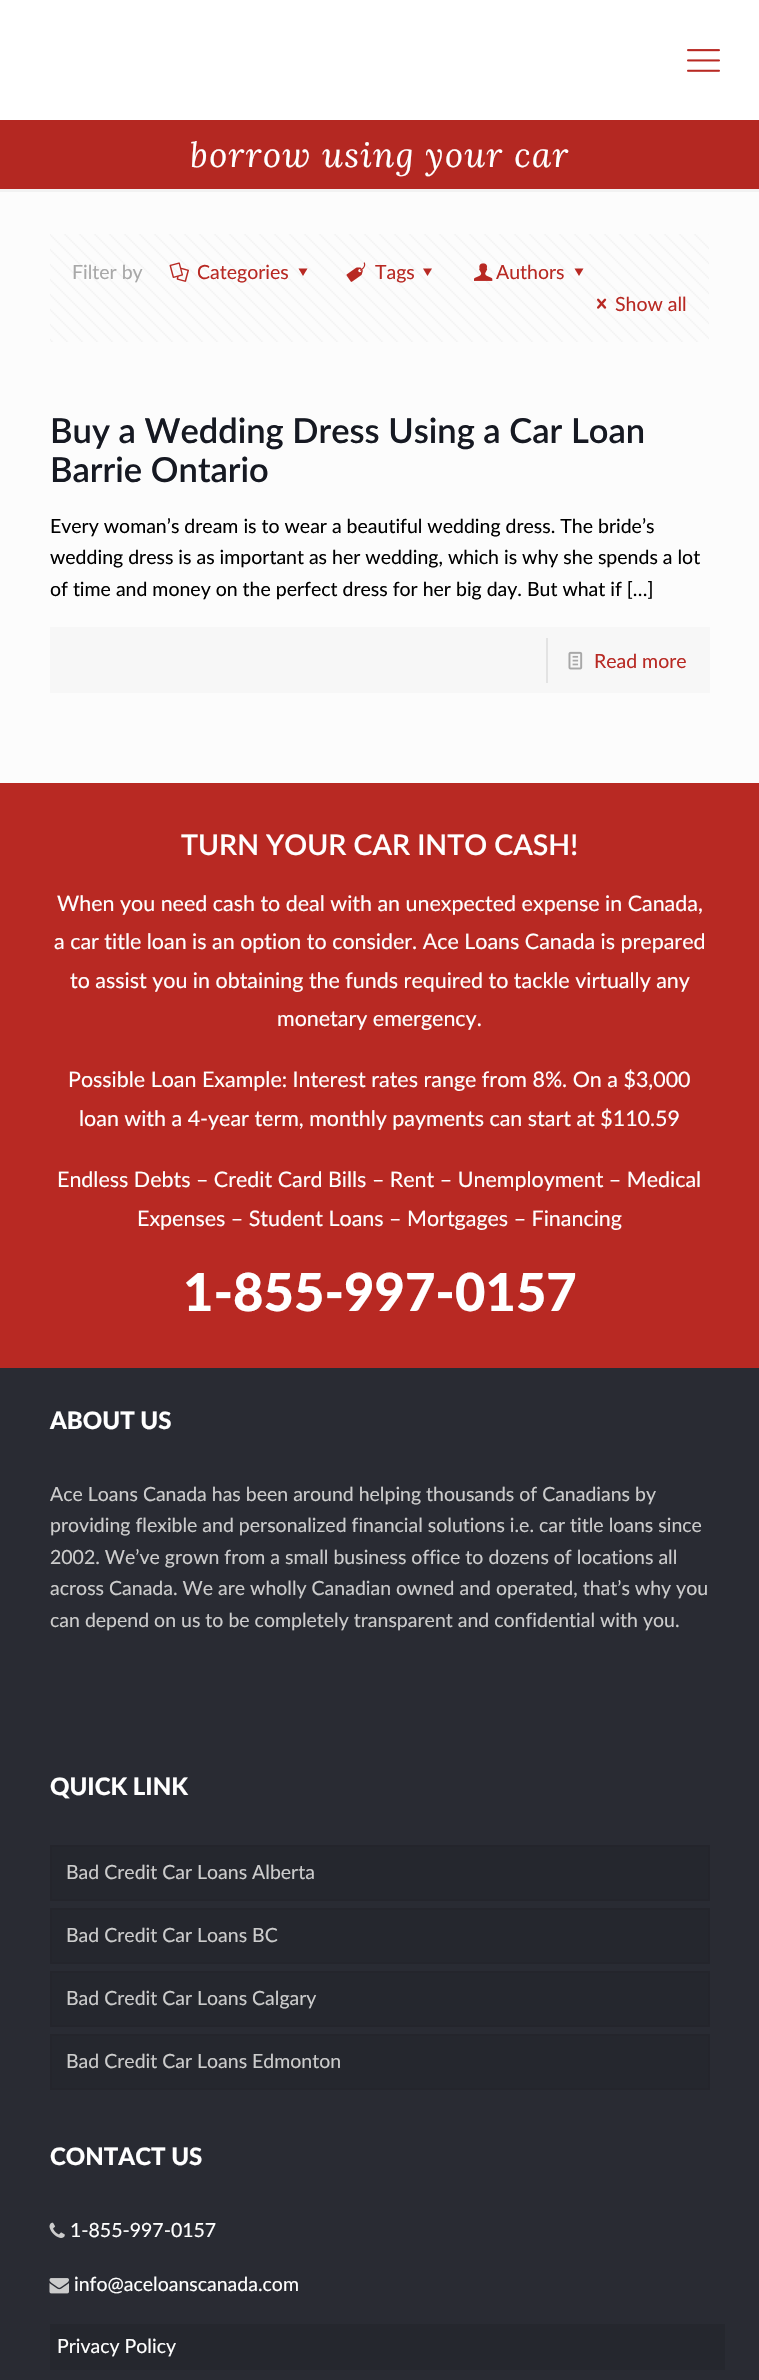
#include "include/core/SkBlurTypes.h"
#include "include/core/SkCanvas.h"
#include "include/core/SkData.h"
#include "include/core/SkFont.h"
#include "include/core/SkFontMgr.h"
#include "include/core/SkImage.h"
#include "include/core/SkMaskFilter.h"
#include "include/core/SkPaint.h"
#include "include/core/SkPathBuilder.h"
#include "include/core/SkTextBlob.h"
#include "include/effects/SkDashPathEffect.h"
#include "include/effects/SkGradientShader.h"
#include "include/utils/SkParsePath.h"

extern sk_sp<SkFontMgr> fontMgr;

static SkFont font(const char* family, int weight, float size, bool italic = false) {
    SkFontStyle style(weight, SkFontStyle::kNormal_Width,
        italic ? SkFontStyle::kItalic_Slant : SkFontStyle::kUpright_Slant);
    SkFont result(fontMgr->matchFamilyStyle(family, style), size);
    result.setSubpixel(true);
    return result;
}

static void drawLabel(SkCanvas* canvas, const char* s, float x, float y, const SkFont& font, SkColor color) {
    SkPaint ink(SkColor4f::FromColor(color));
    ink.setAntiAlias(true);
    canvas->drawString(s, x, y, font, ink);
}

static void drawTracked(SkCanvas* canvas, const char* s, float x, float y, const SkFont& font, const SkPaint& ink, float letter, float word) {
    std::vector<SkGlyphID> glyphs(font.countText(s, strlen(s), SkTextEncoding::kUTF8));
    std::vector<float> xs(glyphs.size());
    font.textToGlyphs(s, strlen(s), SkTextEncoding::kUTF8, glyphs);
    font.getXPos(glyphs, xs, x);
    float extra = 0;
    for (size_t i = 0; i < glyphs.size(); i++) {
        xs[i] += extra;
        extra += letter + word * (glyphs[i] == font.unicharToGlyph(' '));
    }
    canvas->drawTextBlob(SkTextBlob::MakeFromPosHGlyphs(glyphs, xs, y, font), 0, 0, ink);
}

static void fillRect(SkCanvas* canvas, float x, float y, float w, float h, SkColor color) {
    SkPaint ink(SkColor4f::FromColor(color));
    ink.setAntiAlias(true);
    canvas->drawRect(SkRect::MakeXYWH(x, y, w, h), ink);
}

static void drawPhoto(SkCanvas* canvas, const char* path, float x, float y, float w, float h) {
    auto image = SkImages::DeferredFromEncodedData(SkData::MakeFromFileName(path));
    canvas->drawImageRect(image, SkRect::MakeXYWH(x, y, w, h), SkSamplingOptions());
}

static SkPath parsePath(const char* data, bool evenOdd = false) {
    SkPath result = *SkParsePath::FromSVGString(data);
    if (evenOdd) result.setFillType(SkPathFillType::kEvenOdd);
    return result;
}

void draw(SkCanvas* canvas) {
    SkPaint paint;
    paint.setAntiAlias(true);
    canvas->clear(0xFFFCFCFC);
    fillRect(canvas, 0, 0, 759, 120, 0xFFFFFFFF);
    drawPhoto(canvas, "assets/img1.png", 687, 49, 33, 23);
    fillRect(canvas, 0, 120, 759, 69, 0xFFB42822);
    SkFont font1 = font("Lora", 400, 34.5f, true);
    paint.setColor(0xFFFFFFFF);
    drawTracked(canvas, "borrow using your car", 190, 167, font1, paint, 1.5f, 0);
    fillRect(canvas, 0, 189, 759, 3, 0xFFF2F2F2);
    drawPhoto(canvas, "assets/img2.png", 50, 234, 659, 108);
    SkFont font2 = font("Lato", 400, 19.5f);
    drawLabel(canvas, "Filter by", 72, 279, font2, 0xFFA8A8A8);
    drawPhoto(canvas, "assets/img3.png", 169, 262, 20, 20);
    drawLabel(canvas, "Categories", 197, 279, font2, 0xFFB82923);
    paint.setColor(0xFFB82923);
    canvas->drawPath(parsePath("M307.5 268.5L303 276L298.5 268.5Z"), paint);
    drawPhoto(canvas, "assets/img4.png", 346, 262, 20, 20);
    drawLabel(canvas, "Tags", 375, 279, font2, 0xFFB82923);
    canvas->drawPath(parsePath("M432 268.5L427.5 276L423 268.5Z"), paint);
    drawPhoto(canvas, "assets/img5.png", 474, 263, 19, 18);
    drawLabel(canvas, "Authors", 496, 279, font2, 0xFFB82923);
    canvas->drawPath(parsePath("M583.5 268.5L579 276L574.5 268.5Z"), paint);
    drawPhoto(canvas, "assets/img6.png", 597, 298, 10, 11);
    drawLabel(canvas, "Show all", 615, 311, font2, 0xFFB82923);
    SkFont font3 = font("Lato", 600, 34.5f);
    drawLabel(canvas, "Buy a Wedding Dress Using a Car Loan", 50, 443, font3, 0xFF161922);
    drawLabel(canvas, "Barrie Ontario", 50, 482, font3, 0xFF161922);
    drawLabel(canvas, "Every woman’s dream is to wear a beautiful wedding dress. The bride’s", 50, 533, font2, 0xFF000000);
    drawLabel(canvas, "wedding dress is as important as her wedding, which is why she spends a lot", 50, 564, font2, 0xFF000000);
    drawLabel(canvas, "of time and money on the perfect dress for her big day. But what if […]", 50, 596, font2, 0xFF000000);
    fillRect(canvas, 50, 627, 660, 66, 0xFFF7F7F7);
    fillRect(canvas, 546, 638, 2, 45, 0xFFE3E3E3);
    drawPhoto(canvas, "assets/img7.png", 568, 651, 15, 19);
    drawLabel(canvas, "Read more", 594, 668, font2, 0xFFB82923);
    fillRect(canvas, 0, 1368, 759, 1012, 0xFF292B33);
    fillRect(canvas, 0, 783, 759, 585, 0xFFB82923);
    SkFont font4 = font("Lato", 600, 28.5f);
    drawLabel(canvas, "TURN YOUR CAR INTO CASH!", 181, 855, font4, 0xFFFFFFFF);
    SkFont font5 = font("Lato", 400, 21.45f);
    drawLabel(canvas, "When you need cash to deal with an unexpected expense in Canada,", 57, 911, font5, 0xFFFFFFFF);
    drawLabel(canvas, "a car title loan is an option to consider. Ace Loans Canada is prepared", 54, 949, font5, 0xFFFFFFFF);
    drawLabel(canvas, "to assist you in obtaining the funds required to tackle virtually any", 70, 988, font5, 0xFFFFFFFF);
    drawLabel(canvas, "monetary emergency.", 277, 1026, font5, 0xFFFFFFFF);
    drawLabel(canvas, "Possible Loan Example: Interest rates range from 8%. On a $3,000", 68, 1087, font5, 0xFFFFFFFF);
    drawLabel(canvas, "loan with a 4-year term, monthly payments can start at $110.59", 79, 1126, font5, 0xFFFFFFFF);
    drawLabel(canvas, "Endless Debts – Credit Card Bills – Rent – Unemployment – Medical", 57, 1187, font5, 0xFFFFFFFF);
    drawLabel(canvas, "Expenses – Student Loans – Mortgages – Financing", 137, 1226, font5, 0xFFFFFFFF);
    SkFont font6 = font("Lato", 900, 52.5f);
    drawLabel(canvas, "1-855-997-0157", 183, 1311, font6, 0xFFFFFFFF);
    SkFont font7 = font("Lato", 900, 24);
    drawLabel(canvas, "ABOUT US", 50, 1429, font7, 0xFFFFFFFF);
    drawLabel(canvas, "Ace Loans Canada has been around helping thousands of Canadians by", 50, 1501, font2, 0xFFCCCCCC);
    drawLabel(canvas, "providing flexible and personalized financial solutions i.e. car title loans since", 50, 1532, font2, 0xFFCCCCCC);
    drawLabel(canvas, "2002. We’ve grown from a small business office to dozens of locations all", 50, 1564, font2, 0xFFCCCCCC);
    drawLabel(canvas, "across Canada. We are wholly Canadian owned and operated, that’s why you", 50, 1595, font2, 0xFFCCCCCC);
    drawLabel(canvas, "can depend on us to be completely transparent and confidential with you.", 50, 1627, font2, 0xFFCCCCCC);
    drawLabel(canvas, "QUICK LINK", 50, 1795, font7, 0xFFFFFFFF);
    paint.setColor(0xFF25272E);
    canvas->drawRect(SkRect::MakeXYWH(51, 1846, 658, 54), paint);
    paint.setStroke(true);
    paint.setStrokeWidth(2);
    paint.setColor(0xFF24252C);
    canvas->drawRect(SkRect::MakeXYWH(51, 1846, 658, 54), paint);
    drawLabel(canvas, "Bad Credit Car Loans Alberta", 66, 1879, font2, 0xFFCCCCCC);
    paint.setStroke(false);
    paint.setColor(0xFF25272E);
    canvas->drawRect(SkRect::MakeXYWH(51, 1909, 658, 54), paint);
    paint.setStroke(true);
    paint.setColor(0xFF24252C);
    canvas->drawRect(SkRect::MakeXYWH(51, 1909, 658, 54), paint);
    drawLabel(canvas, "Bad Credit Car Loans BC", 66, 1942, font2, 0xFFCCCCCC);
    paint.setStroke(false);
    paint.setColor(0xFF25272E);
    canvas->drawRect(SkRect::MakeXYWH(51, 1972, 658, 54), paint);
    paint.setStroke(true);
    paint.setColor(0xFF24252C);
    canvas->drawRect(SkRect::MakeXYWH(51, 1972, 658, 54), paint);
    drawLabel(canvas, "Bad Credit Car Loans Calgary", 66, 2005, font2, 0xFFCCCCCC);
    paint.setStroke(false);
    paint.setColor(0xFF25272E);
    canvas->drawRect(SkRect::MakeXYWH(51, 2035, 658, 54), paint);
    paint.setStroke(true);
    paint.setColor(0xFF24252C);
    canvas->drawRect(SkRect::MakeXYWH(51, 2035, 658, 54), paint);
    drawLabel(canvas, "Bad Credit Car Loans Edmonton", 66, 2068, font2, 0xFFCCCCCC);
    drawLabel(canvas, "CONTACT US", 50, 2165, font7, 0xFFFFFFFF);
    drawPhoto(canvas, "assets/img8.png", 49, 2222, 16, 16);
    drawLabel(canvas, "1-855-997-0157", 70, 2237, font2, 0xFFFFFFFF);
    drawPhoto(canvas, "assets/img9.png", 49, 2278, 20, 16);
    drawLabel(canvas, "info@aceloanscanada.com", 74, 2291, font2, 0xFFFFFFFF);
    fillRect(canvas, 50, 2324, 675, 46, 0xFF25272E);
    drawLabel(canvas, "Privacy Policy", 57, 2353, font2, 0xFFFFFFFF);
}
